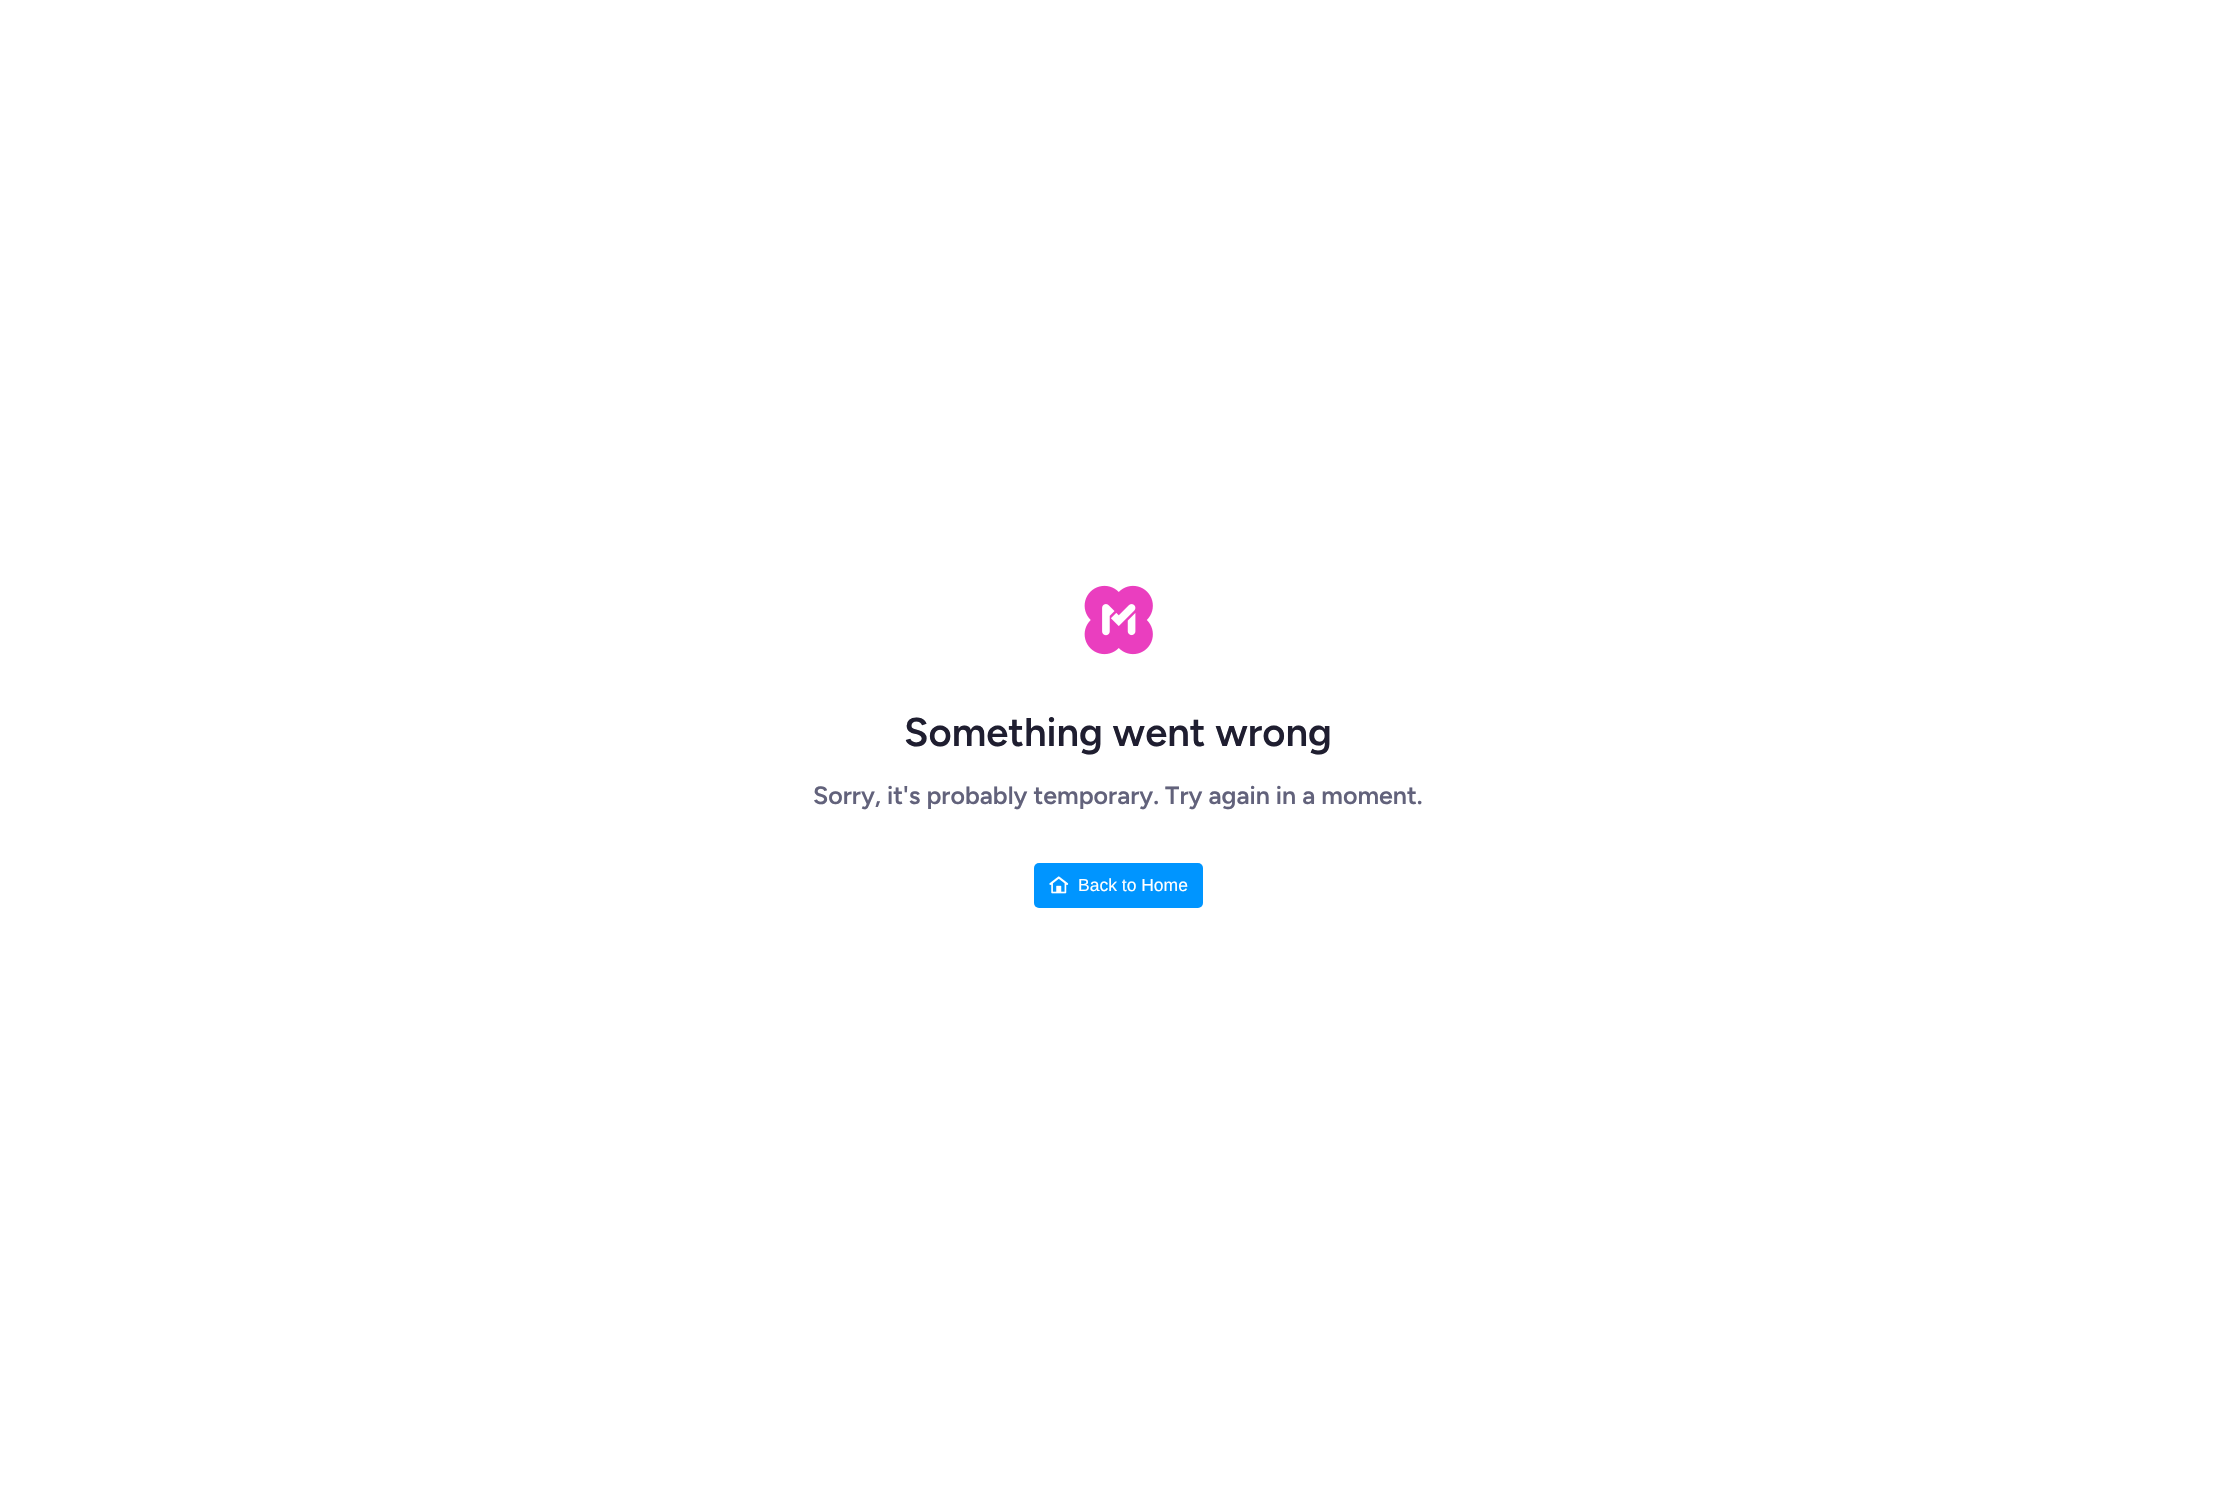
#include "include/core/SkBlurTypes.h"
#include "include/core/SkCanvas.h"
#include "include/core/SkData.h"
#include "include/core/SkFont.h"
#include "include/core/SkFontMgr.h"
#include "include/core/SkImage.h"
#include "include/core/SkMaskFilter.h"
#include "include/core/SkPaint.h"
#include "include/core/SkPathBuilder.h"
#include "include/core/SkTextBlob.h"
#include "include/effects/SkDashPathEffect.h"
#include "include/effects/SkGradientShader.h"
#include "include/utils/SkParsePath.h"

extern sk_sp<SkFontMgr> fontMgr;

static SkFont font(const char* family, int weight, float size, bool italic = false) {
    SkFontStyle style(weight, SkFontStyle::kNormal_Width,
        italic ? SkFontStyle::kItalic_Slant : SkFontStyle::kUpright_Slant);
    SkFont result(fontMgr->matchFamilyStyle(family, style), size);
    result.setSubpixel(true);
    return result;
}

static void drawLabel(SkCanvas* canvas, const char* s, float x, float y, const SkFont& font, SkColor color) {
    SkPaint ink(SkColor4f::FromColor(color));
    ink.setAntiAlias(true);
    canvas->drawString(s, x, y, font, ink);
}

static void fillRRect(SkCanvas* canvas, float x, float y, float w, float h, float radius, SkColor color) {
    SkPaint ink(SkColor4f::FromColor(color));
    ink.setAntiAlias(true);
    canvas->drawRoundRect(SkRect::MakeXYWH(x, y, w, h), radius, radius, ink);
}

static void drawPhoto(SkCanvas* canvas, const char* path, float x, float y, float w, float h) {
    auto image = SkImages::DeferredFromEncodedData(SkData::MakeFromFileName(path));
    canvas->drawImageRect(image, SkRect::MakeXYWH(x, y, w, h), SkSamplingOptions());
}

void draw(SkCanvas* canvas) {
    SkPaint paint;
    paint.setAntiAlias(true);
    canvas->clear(0xFFFFFFFF);
    drawPhoto(canvas, "assets/img1.png", 1084, 585, 69, 70);
    SkFont font1 = font("Figtree", 600, 40);
    drawLabel(canvas, "Something went wrong", 904, 746, font1, 0xFF1F1E30);
    SkFont font2 = font("Figtree", 600, 25);
    drawLabel(canvas, "Sorry, it's probably temporary. Try again in a moment.", 813, 804, font2, 0xFF62627B);
    fillRRect(canvas, 1034, 863, 169, 45, 5, 0xFF0095FF);
    drawPhoto(canvas, "assets/img2.png", 1049, 876, 20, 18);
    SkFont font3 = font("Liberation Sans", 400, 17.5f);
    drawLabel(canvas, "Back to Home", 1078, 891, font3, 0xFFFFFFFF);
}
